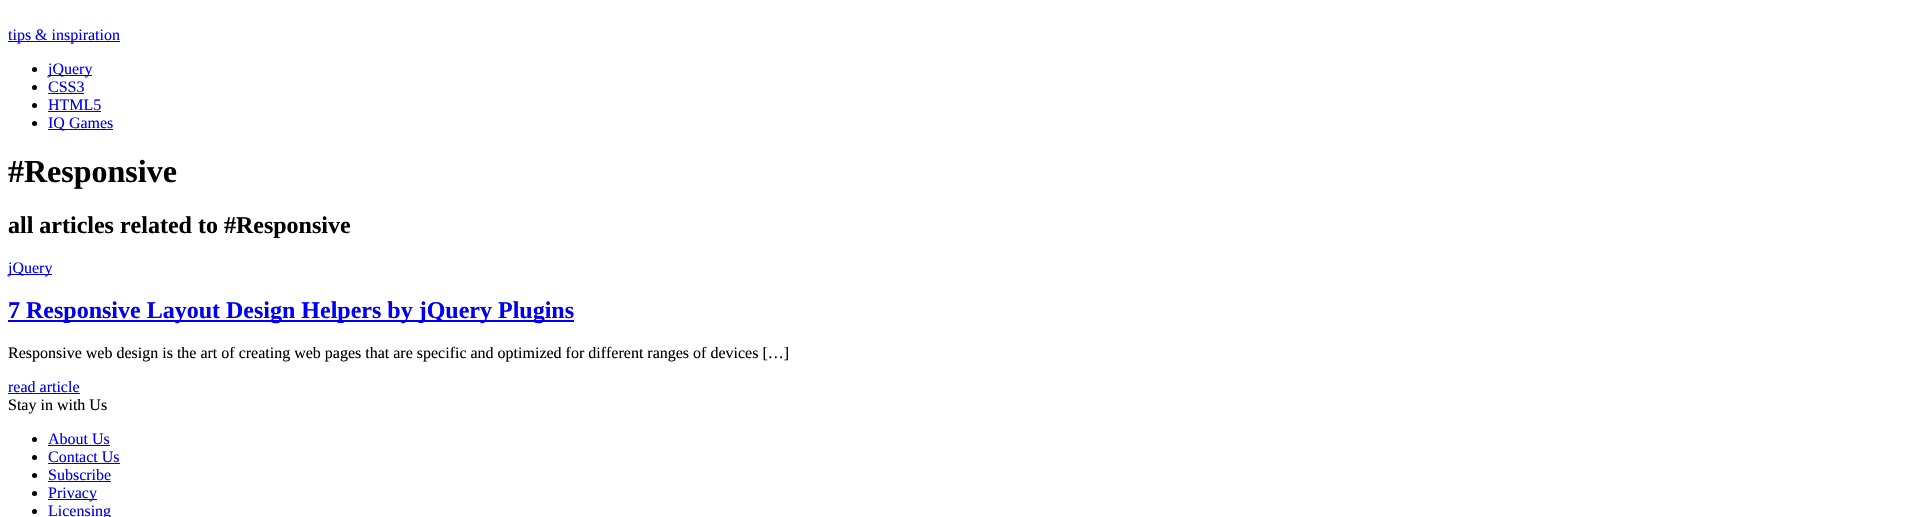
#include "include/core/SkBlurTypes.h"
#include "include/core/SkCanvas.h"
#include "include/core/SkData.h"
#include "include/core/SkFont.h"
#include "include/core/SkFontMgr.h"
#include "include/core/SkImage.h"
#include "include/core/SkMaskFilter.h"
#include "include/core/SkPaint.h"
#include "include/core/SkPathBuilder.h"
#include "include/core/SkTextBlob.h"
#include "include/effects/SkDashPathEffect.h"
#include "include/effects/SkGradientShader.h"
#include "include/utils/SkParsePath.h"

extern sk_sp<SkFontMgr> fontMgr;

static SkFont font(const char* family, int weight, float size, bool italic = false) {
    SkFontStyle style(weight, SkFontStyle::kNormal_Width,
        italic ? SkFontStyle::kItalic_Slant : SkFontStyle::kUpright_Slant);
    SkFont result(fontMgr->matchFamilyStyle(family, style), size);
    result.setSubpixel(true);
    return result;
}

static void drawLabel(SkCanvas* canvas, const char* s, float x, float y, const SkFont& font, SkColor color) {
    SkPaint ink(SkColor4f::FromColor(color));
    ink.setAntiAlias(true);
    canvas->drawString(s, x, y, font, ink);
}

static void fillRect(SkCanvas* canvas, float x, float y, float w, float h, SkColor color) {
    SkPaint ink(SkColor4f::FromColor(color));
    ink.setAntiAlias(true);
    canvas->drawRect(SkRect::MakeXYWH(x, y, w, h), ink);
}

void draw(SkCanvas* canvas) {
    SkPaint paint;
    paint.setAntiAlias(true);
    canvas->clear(0xFFFFFFFF);
    fillRect(canvas, 8, 41, 112, 1, 0xFF0000EE);
    SkFont font1 = font("Liberation Serif", 400, 16);
    drawLabel(canvas, "tips & inspiration", 8, 40, font1, 0xFF0000EE);
    paint.setColor(0xFF000000);
    canvas->drawCircle(34.5f, 69.5f, 2.5f, paint);
    fillRect(canvas, 48, 75, 44, 1, 0xFF0000EE);
    drawLabel(canvas, "jQuery", 48, 74, font1, 0xFF0000EE);
    canvas->drawCircle(34.5f, 87.5f, 2.5f, paint);
    drawLabel(canvas, "CSS3", 48, 92, font1, 0xFF0000EE);
    fillRect(canvas, 48, 93, 36, 1, 0xFF0000EE);
    canvas->drawCircle(34.5f, 105.5f, 2.5f, paint);
    drawLabel(canvas, "HTML5", 48, 110, font1, 0xFF0000EE);
    fillRect(canvas, 48, 111, 53, 1, 0xFF0000EE);
    canvas->drawCircle(34.5f, 123.5f, 2.5f, paint);
    fillRect(canvas, 48, 129, 65, 1, 0xFF0000EE);
    drawLabel(canvas, "IQ Games", 48, 128, font1, 0xFF0000EE);
    SkFont font2 = font("Liberation Serif", 700, 32);
    drawLabel(canvas, "#Responsive", 8, 182, font2, 0xFF000000);
    SkFont font3 = font("Liberation Serif", 700, 24);
    drawLabel(canvas, "all articles related to #Responsive", 8, 233, font3, 0xFF000000);
    fillRect(canvas, 8, 274, 44, 1, 0xFF0000EE);
    drawLabel(canvas, "jQuery", 8, 273, font1, 0xFF0000EE);
    fillRect(canvas, 8, 320, 566, 2, 0xFF0000EE);
    drawLabel(canvas, "7 Responsive Layout Design Helpers by jQuery Plugins", 8, 318, font3, 0xFF0000EE);
    drawLabel(canvas, "Responsive web design is the art of creating web pages that are specific and optimized for different ranges of devices […]", 8, 358, font1, 0xFF000000);
    drawLabel(canvas, "read article", 8, 392, font1, 0xFF0000EE);
    fillRect(canvas, 8, 393, 72, 1, 0xFF0000EE);
    drawLabel(canvas, "Stay in with Us", 8, 410, font1, 0xFF000000);
    canvas->drawCircle(34.5f, 439.5f, 2.5f, paint);
    drawLabel(canvas, "About Us", 48, 444, font1, 0xFF0000EE);
    fillRect(canvas, 48, 445, 62, 1, 0xFF0000EE);
    canvas->drawCircle(34.5f, 457.5f, 2.5f, paint);
    drawLabel(canvas, "Contact Us", 48, 462, font1, 0xFF0000EE);
    fillRect(canvas, 48, 463, 72, 1, 0xFF0000EE);
    canvas->drawCircle(34.5f, 475.5f, 2.5f, paint);
    drawLabel(canvas, "Subscribe", 48, 480, font1, 0xFF0000EE);
    fillRect(canvas, 48, 481, 63, 1, 0xFF0000EE);
    canvas->drawCircle(34.5f, 493.5f, 2.5f, paint);
    fillRect(canvas, 48, 499, 49, 1, 0xFF0000EE);
    drawLabel(canvas, "Privacy", 48, 498, font1, 0xFF0000EE);
    canvas->drawCircle(34.5f, 511.5f, 2.5f, paint);
    drawLabel(canvas, "Licensing", 48, 516, font1, 0xFF0000EE);
}
